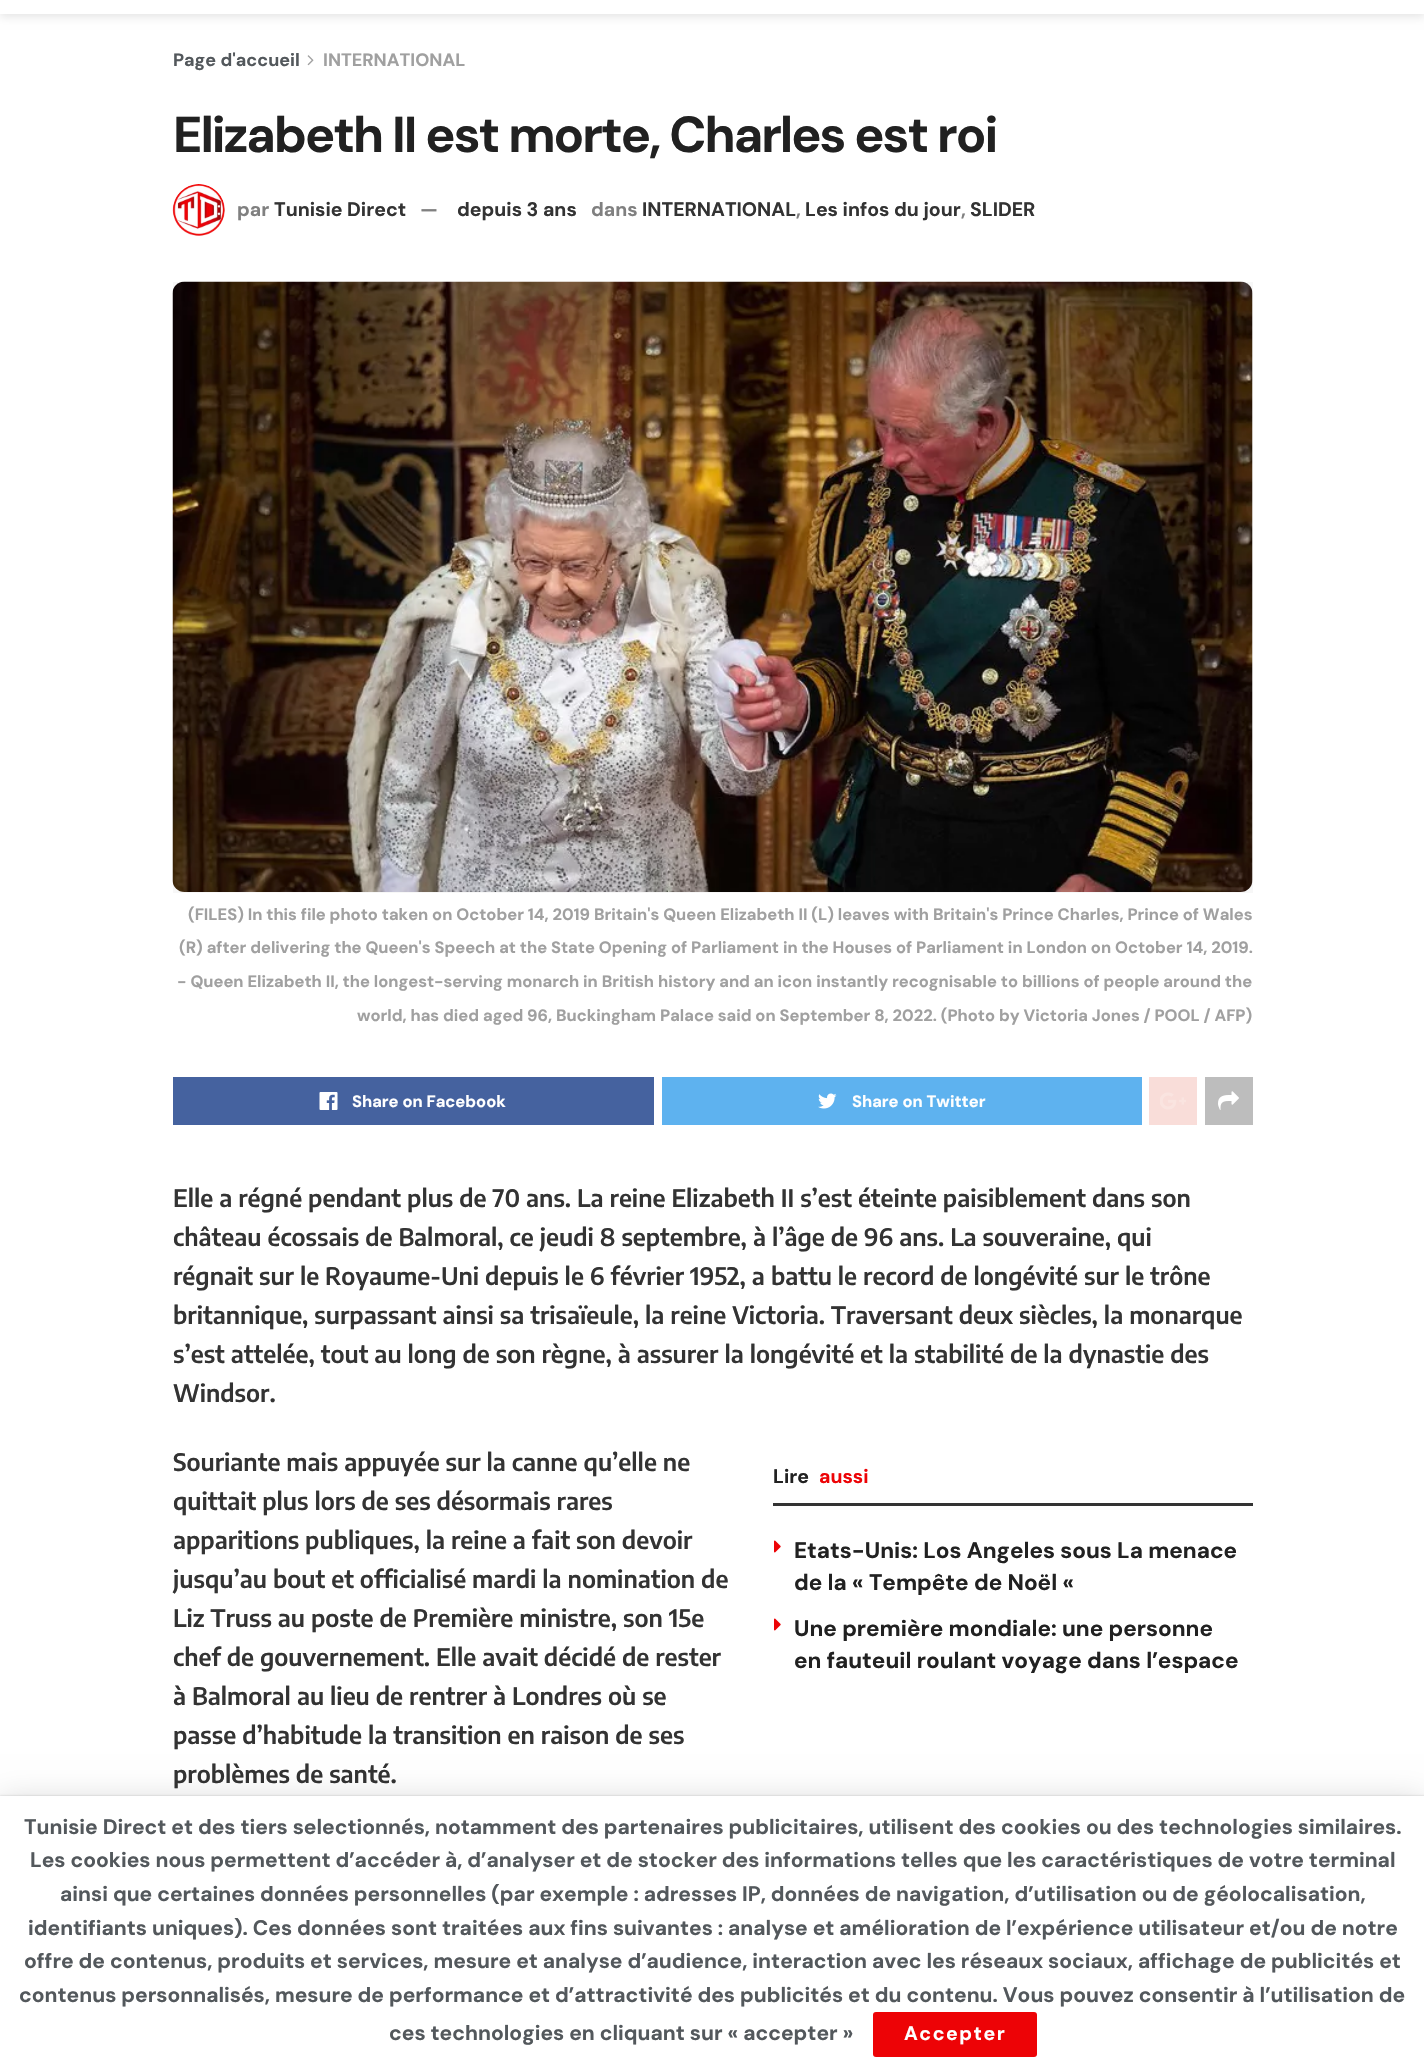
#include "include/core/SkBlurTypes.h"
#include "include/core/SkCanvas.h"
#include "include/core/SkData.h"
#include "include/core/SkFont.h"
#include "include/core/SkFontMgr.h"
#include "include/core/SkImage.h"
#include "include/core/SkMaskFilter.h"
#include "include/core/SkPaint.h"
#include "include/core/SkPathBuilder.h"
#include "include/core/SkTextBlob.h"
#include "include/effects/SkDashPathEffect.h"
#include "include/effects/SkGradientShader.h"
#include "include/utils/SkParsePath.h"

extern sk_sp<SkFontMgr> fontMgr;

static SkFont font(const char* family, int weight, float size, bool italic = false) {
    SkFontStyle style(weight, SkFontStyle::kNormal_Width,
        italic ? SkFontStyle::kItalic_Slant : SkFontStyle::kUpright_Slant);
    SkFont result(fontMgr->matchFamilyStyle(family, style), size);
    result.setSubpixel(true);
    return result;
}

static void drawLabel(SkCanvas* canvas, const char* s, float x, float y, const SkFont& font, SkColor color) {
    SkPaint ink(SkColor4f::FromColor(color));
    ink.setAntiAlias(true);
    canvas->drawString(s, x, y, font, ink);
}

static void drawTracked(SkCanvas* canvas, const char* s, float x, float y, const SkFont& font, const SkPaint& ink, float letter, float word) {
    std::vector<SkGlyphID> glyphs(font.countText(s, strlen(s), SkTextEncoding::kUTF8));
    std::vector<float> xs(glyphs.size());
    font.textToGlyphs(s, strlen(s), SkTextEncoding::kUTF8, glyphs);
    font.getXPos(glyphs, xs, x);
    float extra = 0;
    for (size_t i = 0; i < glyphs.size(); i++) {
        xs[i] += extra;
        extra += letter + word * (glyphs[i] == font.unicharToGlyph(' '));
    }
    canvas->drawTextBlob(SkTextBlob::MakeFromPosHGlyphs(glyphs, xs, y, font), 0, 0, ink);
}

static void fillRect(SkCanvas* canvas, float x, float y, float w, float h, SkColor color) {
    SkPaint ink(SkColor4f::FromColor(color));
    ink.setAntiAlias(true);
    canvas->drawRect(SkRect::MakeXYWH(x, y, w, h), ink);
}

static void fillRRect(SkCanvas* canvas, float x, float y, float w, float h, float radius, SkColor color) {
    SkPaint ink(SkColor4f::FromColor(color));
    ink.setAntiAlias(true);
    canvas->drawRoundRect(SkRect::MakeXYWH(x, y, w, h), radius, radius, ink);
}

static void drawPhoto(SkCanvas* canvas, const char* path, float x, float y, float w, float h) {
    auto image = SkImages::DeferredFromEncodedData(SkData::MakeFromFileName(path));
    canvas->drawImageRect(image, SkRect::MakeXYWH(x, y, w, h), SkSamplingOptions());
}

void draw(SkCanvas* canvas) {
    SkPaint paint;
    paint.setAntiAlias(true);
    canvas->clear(0xFFFFFFFF);
    paint.setColor(0x1A000000);
    paint.setMaskFilter(SkMaskFilter::MakeBlur(kNormal_SkBlurStyle, 4.5f));
    canvas->drawRect(SkRect::MakeXYWH(0, -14, 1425, 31), paint);
    paint.setMaskFilter(nullptr);
    fillRect(canvas, 0, 0, 1424, 14, 0xFFFFFFFF);
    SkFont font1 = font("DM Sans", 700, 18);
    drawLabel(canvas, "Page d'accueil", 173, 66, font1, 0xFF53585C);
    drawPhoto(canvas, "assets/img1.png", 307, 55, 7, 11);
    drawLabel(canvas, "INTERNATIONAL", 323, 66, font1, 0xFFA0A0A0);
    SkFont font2 = font("DM Sans", 700, 50.4f);
    paint.setColor(0xFF212121);
    drawTracked(canvas, "Elizabeth II est morte, Charles est roi", 173, 152, font2, paint, -2, 0);
    drawPhoto(canvas, "assets/img2.png", 172, 184, 53, 52);
    SkFont font3 = font("DM Sans", 700, 19.5f);
    drawLabel(canvas, "par", 237, 216, font3, 0xFF808080);
    drawLabel(canvas, "Tunisie Direct", 274, 216, font3, 0xFF333333);
    drawLabel(canvas, "—", 420, 216, font3, 0xFF808080);
    drawLabel(canvas, "depuis 3 ans", 457, 216, font3, 0xFF333333);
    drawLabel(canvas, "dans", 591, 216, font3, 0xFF808080);
    drawLabel(canvas, "INTERNATIONAL", 642, 216, font3, 0xFF333333);
    drawLabel(canvas, ",", 796, 216, font3, 0xFF808080);
    drawLabel(canvas, "Les infos du jour", 805, 216, font3, 0xFF333333);
    drawLabel(canvas, ",", 961, 216, font3, 0xFF808080);
    drawLabel(canvas, "SLIDER", 970, 216, font3, 0xFF333333);
    fillRect(canvas, 173, 282, 1080, 611, 0xFFF7F7F7);
    drawPhoto(canvas, "assets/img3.png", 172, 281, 1081, 611);
    SkFont font4 = font("DM Sans", 700, 16.5f);
    drawLabel(canvas, "(FILES) In this file photo taken on October 14, 2019 Britain's Queen Elizabeth II (L) leaves with Britain's Prince Charles, Prince of Wales", 188, 920, font4, 0xFFA0A0A0);
    drawLabel(canvas, "(R) after delivering the Queen's Speech at the State Opening of Parliament in the Houses of Parliament in London on October 14, 2019.", 179, 953, font4, 0xFFA0A0A0);
    drawLabel(canvas, "- Queen Elizabeth II, the longest-serving monarch in British history and an icon instantly recognisable to billions of people around the", 177, 987, font4, 0xFFA0A0A0);
    drawLabel(canvas, "world, has died aged 96, Buckingham Palace said on September 8, 2022. (Photo by Victoria Jones / POOL / AFP)", 357, 1021, font4, 0xFFA0A0A0);
    fillRect(canvas, 173, 1077, 481, 48, 0xFF45629F);
    drawPhoto(canvas, "assets/img4.png", 319, 1092, 19, 18);
    drawLabel(canvas, "Share on Facebook", 352, 1107, font4, 0xFFFFFFFF);
    fillRect(canvas, 662, 1077, 480, 48, 0xFF5EB2EF);
    drawPhoto(canvas, "assets/img5.png", 818, 1093, 19, 16);
    drawLabel(canvas, "Share on Twitter", 852, 1107, font4, 0xFFFFFFFF);
    fillRect(canvas, 1149, 1077, 48, 48, 0xFFF9DDD9);
    drawPhoto(canvas, "assets/img6.png", 1160, 1092, 26, 18);
    fillRect(canvas, 1205, 1077, 48, 48, 0xFFBDBDBD);
    drawPhoto(canvas, "assets/img7.png", 1218, 1091, 21, 19);
    SkFont font5 = font("Encode Sans Condensed", 100, 24);
    drawLabel(canvas, "Elle a régné pendant plus de 70 ans. La reine Elizabeth II s’est éteinte paisiblement dans son", 173, 1207, font5, 0xFF333333);
    drawLabel(canvas, "château écossais de Balmoral, ce jeudi 8 septembre, à l’âge de 96 ans. La souveraine, qui", 173, 1246, font5, 0xFF333333);
    drawLabel(canvas, "régnait sur le Royaume-Uni depuis le 6 février 1952, a battu le record de longévité sur le trône", 173, 1285, font5, 0xFF333333);
    drawLabel(canvas, "britannique, surpassant ainsi sa trisaïeule, la reine Victoria. Traversant deux siècles, la monarque", 173, 1324, font5, 0xFF333333);
    drawLabel(canvas, "s’est attelée, tout au long de son règne, à assurer la longévité et la stabilité de la dynastie des", 173, 1363, font5, 0xFF333333);
    drawLabel(canvas, "Windsor.", 173, 1402, font5, 0xFF333333);
    drawLabel(canvas, "Souriante mais appuyée sur la canne qu’elle ne", 173, 1471, font5, 0xFF333333);
    drawLabel(canvas, "quittait plus lors de ses désormais rares", 173, 1510, font5, 0xFF333333);
    drawLabel(canvas, "apparitions publiques, la reine a fait son devoir", 173, 1549, font5, 0xFF333333);
    drawLabel(canvas, "jusqu’au bout et officialisé mardi la nomination de", 173, 1588, font5, 0xFF333333);
    drawLabel(canvas, "Liz Truss au poste de Première ministre, son 15e", 173, 1627, font5, 0xFF333333);
    drawLabel(canvas, "chef de gouvernement. Elle avait décidé de rester", 173, 1666, font5, 0xFF333333);
    drawLabel(canvas, "à Balmoral au lieu de rentrer à Londres où se", 173, 1705, font5, 0xFF333333);
    drawLabel(canvas, "passe d’habitude la transition en raison de ses", 173, 1744, font5, 0xFF333333);
    drawLabel(canvas, "problèmes de santé.", 173, 1783, font5, 0xFF333333);
    fillRect(canvas, 773, 1503, 480, 3, 0xFF333333);
    drawLabel(canvas, "Lire", 773, 1483, font3, 0xFF212121);
    drawLabel(canvas, "aussi", 819, 1483, font3, 0xFFED0306);
    drawPhoto(canvas, "assets/img8.png", 774, 1540, 7, 13);
    SkFont font6 = font("DM Sans", 700, 22.5f);
    drawLabel(canvas, "Etats-Unis: Los Angeles sous La menace", 794, 1558, font6, 0xFF212121);
    drawLabel(canvas, "de la « Tempête de Noël «", 794, 1590, font6, 0xFF212121);
    drawPhoto(canvas, "assets/img8.png", 774, 1618, 7, 13);
    drawLabel(canvas, "Une première mondiale: une personne", 794, 1636, font6, 0xFF212121);
    drawLabel(canvas, "en fauteuil roulant voyage dans l’espace", 794, 1668, font6, 0xFF212121);
    paint.setColor(0x26000000);
    paint.setMaskFilter(SkMaskFilter::MakeBlur(kNormal_SkBlurStyle, 15));
    canvas->drawRect(SkRect::MakeXYWH(0, 1799, 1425, 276), paint);
    paint.setMaskFilter(nullptr);
    paint.setColor(0x33000000);
    paint.setMaskFilter(SkMaskFilter::MakeBlur(kNormal_SkBlurStyle, 1));
    canvas->drawRect(SkRect::MakeXYWH(0, 1796, 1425, 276), paint);
    paint.setMaskFilter(nullptr);
    fillRect(canvas, 0, 1796, 1424, 275, 0xFFFFFFFF);
    SkFont font7 = font("DM Sans", 700, 21);
    drawLabel(canvas, "Tunisie Direct et des tiers selectionnés, notamment des partenaires publicitaires, utilisent des cookies ou des technologies similaires.", 24, 1834, font7, 0xFF53585C);
    drawLabel(canvas, "Les cookies nous permettent d’accéder à, d’analyser et de stocker des informations telles que les caractéristiques de votre terminal", 30, 1867, font7, 0xFF53585C);
    drawLabel(canvas, "ainsi que certaines données personnelles (par exemple : adresses IP, données de navigation, d’utilisation ou de géolocalisation,", 60, 1901, font7, 0xFF53585C);
    drawLabel(canvas, "identifiants uniques). Ces données sont traitées aux fins suivantes : analyse et amélioration de l’expérience utilisateur et/ou de notre", 28, 1935, font7, 0xFF53585C);
    drawLabel(canvas, "offre de contenus, produits et services, mesure et analyse d’audience, interaction avec les réseaux sociaux, affichage de publicités et", 24, 1968, font7, 0xFF53585C);
    drawLabel(canvas, "contenus personnalisés, mesure de performance et d’attractivité des publicités et du contenu. Vous pouvez consentir à l’utilisation de", 19, 2002, font7, 0xFF53585C);
    drawLabel(canvas, "ces technologies en cliquant sur « accepter »", 389, 2040, font7, 0xFF53585C);
    fillRRect(canvas, 873, 2012, 164, 45, 3, 0xFFED0306);
    paint.setColor(0xFFFFFFFF);
    drawTracked(canvas, "Accepter", 904, 2040, font3, paint, 1.5f, 0);
}
